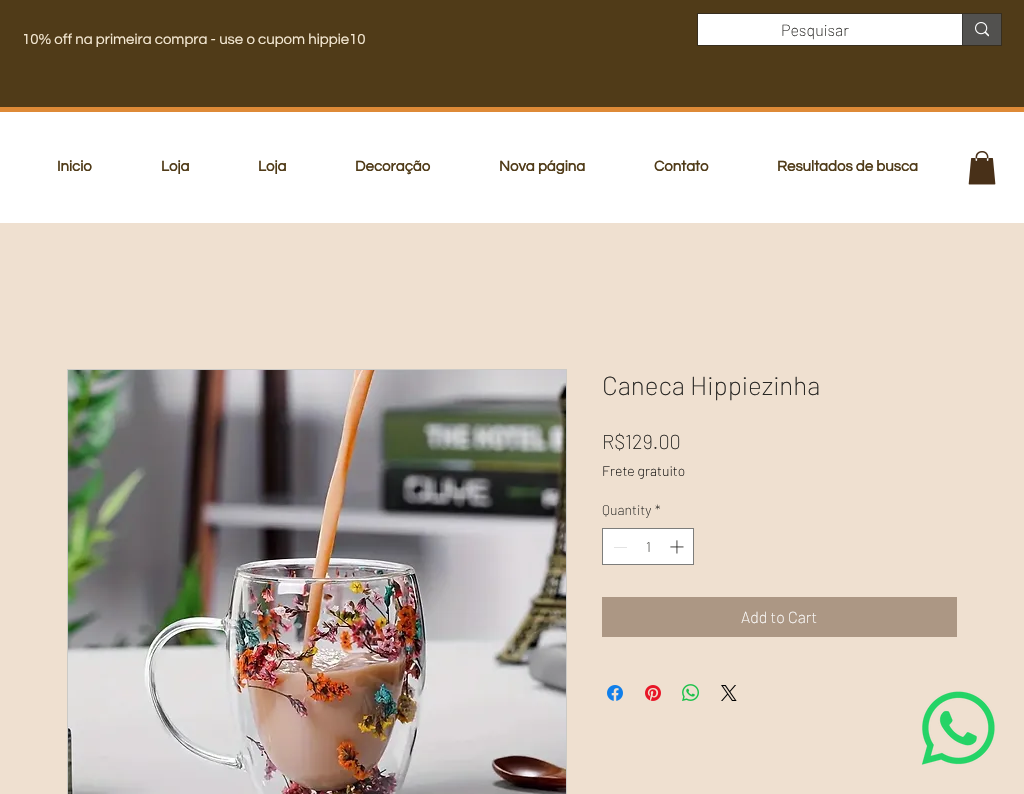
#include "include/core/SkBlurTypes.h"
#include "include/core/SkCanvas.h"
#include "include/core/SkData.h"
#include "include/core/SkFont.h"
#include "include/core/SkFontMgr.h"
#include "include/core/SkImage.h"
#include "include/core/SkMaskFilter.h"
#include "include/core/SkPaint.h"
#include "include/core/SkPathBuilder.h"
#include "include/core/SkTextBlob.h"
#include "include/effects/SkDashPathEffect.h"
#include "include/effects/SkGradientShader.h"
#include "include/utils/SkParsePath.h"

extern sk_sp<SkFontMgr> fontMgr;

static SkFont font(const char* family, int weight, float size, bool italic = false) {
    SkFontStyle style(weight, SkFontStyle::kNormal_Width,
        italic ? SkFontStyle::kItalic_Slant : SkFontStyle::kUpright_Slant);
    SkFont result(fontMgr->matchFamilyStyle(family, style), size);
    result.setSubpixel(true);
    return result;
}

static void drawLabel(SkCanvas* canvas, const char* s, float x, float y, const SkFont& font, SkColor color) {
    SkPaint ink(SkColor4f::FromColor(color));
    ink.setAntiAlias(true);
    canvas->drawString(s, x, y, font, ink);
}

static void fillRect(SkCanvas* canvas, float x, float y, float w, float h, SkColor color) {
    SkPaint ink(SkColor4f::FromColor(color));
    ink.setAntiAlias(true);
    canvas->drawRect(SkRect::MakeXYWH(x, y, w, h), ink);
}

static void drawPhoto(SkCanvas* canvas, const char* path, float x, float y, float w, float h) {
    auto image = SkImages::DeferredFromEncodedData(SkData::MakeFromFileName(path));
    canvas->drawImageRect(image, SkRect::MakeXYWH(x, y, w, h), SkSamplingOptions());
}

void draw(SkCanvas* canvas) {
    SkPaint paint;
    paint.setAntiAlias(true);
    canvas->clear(0xFFEFE0D0);
    fillRect(canvas, 0, 0, 1024, 107, 0xFF503B18);
    SkFont font1 = font("Questrial", 400, 15);
    drawLabel(canvas, "10% off na primeira compra - use o cupom hippie10", 22, 44, font1, 0xFFF6EAD5);
    paint.setStroke(true);
    paint.setStrokeWidth(1);
    paint.setColor(0xFF372E1F);
    canvas->drawRect(SkRect::MakeXYWH(697.5f, 13.5f, 304, 32), paint);
    fillRect(canvas, 698, 14, 264, 31, 0xFFFFFFFF);
    SkFont font2 = font("Barlow", 200, 16);
    drawLabel(canvas, "Pesquisar", 781, 36, font2, 0xFF272623);
    fillRect(canvas, 963, 14, 38, 31, 0xFF52514F);
    fillRect(canvas, 962, 14, 1, 31, 0xFF383735);
    drawPhoto(canvas, "assets/img1.png", 975, 22, 14, 15);
    fillRect(canvas, 0, 112, 1024, 111, 0xFFFFFFFF);
    SkFont font3 = font("Questrial", 700, 15);
    drawLabel(canvas, "Inicio", 57, 171, font3, 0xFF503B18);
    drawLabel(canvas, "Loja", 161, 171, font3, 0xFF503B18);
    drawLabel(canvas, "Loja", 258, 171, font3, 0xFF503B18);
    drawLabel(canvas, "Decoração", 355, 171, font3, 0xFF503B18);
    drawLabel(canvas, "Nova página", 499, 171, font3, 0xFF503B18);
    drawLabel(canvas, "Contato", 654, 171, font3, 0xFF503B18);
    drawLabel(canvas, "Resultados de busca", 777, 171, font3, 0xFF503B18);
    drawPhoto(canvas, "assets/img2.png", 968, 151, 28, 34);
    fillRect(canvas, 0, 107, 1024, 5, 0xFFDE8A37);
    paint.setColor(0xFFCBCAC6);
    canvas->drawRect(SkRect::MakeXYWH(67.5f, 369.5f, 499, 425), paint);
    drawPhoto(canvas, "assets/img3.png", 68, 370, 498, 424);
    SkFont font4 = font("Barlow", 200, 26);
    drawLabel(canvas, "Caneca Hippiezinha", 602, 395, font4, 0xFF272623);
    SkFont font5 = font("Barlow", 200, 20);
    drawLabel(canvas, "R$129.00", 602, 449, font5, 0xFF272623);
    SkFont font6 = font("Barlow", 200, 14);
    drawLabel(canvas, "Frete gratuito", 602, 476, font6, 0xFF000000);
    drawLabel(canvas, "Quantity", 602, 515, font6, 0xFF272623);
    drawLabel(canvas, "*", 655, 515, font6, 0xFF272623);
    paint.setStroke(false);
    paint.setColor(0xFFFFFFFF);
    canvas->drawRect(SkRect::MakeXYWH(602.5f, 528.5f, 91, 36), paint);
    paint.setStroke(true);
    paint.setColor(0xFF7D7D7B);
    canvas->drawRect(SkRect::MakeXYWH(602.5f, 528.5f, 91, 36), paint);
    fillRect(canvas, 614, 547, 13, 1, 0xFFE3E3E3);
    drawLabel(canvas, "1", 646, 552, font6, 0xFF272623);
    drawPhoto(canvas, "assets/img4.png", 670, 540, 14, 14);
    fillRect(canvas, 602, 597, 355, 40, 0xFFAC9784);
    drawLabel(canvas, "Add to Cart", 741, 623, font2, 0xFFFFFFFF);
    drawPhoto(canvas, "assets/img5.png", 607, 685, 16, 16);
    drawPhoto(canvas, "assets/img6.png", 645, 685, 16, 16);
    drawPhoto(canvas, "assets/img7.png", 682, 684, 17, 17);
    drawPhoto(canvas, "assets/img8.png", 721, 685, 16, 16);
    drawPhoto(canvas, "assets/img9.png", 921, 691, 74, 74);
}
